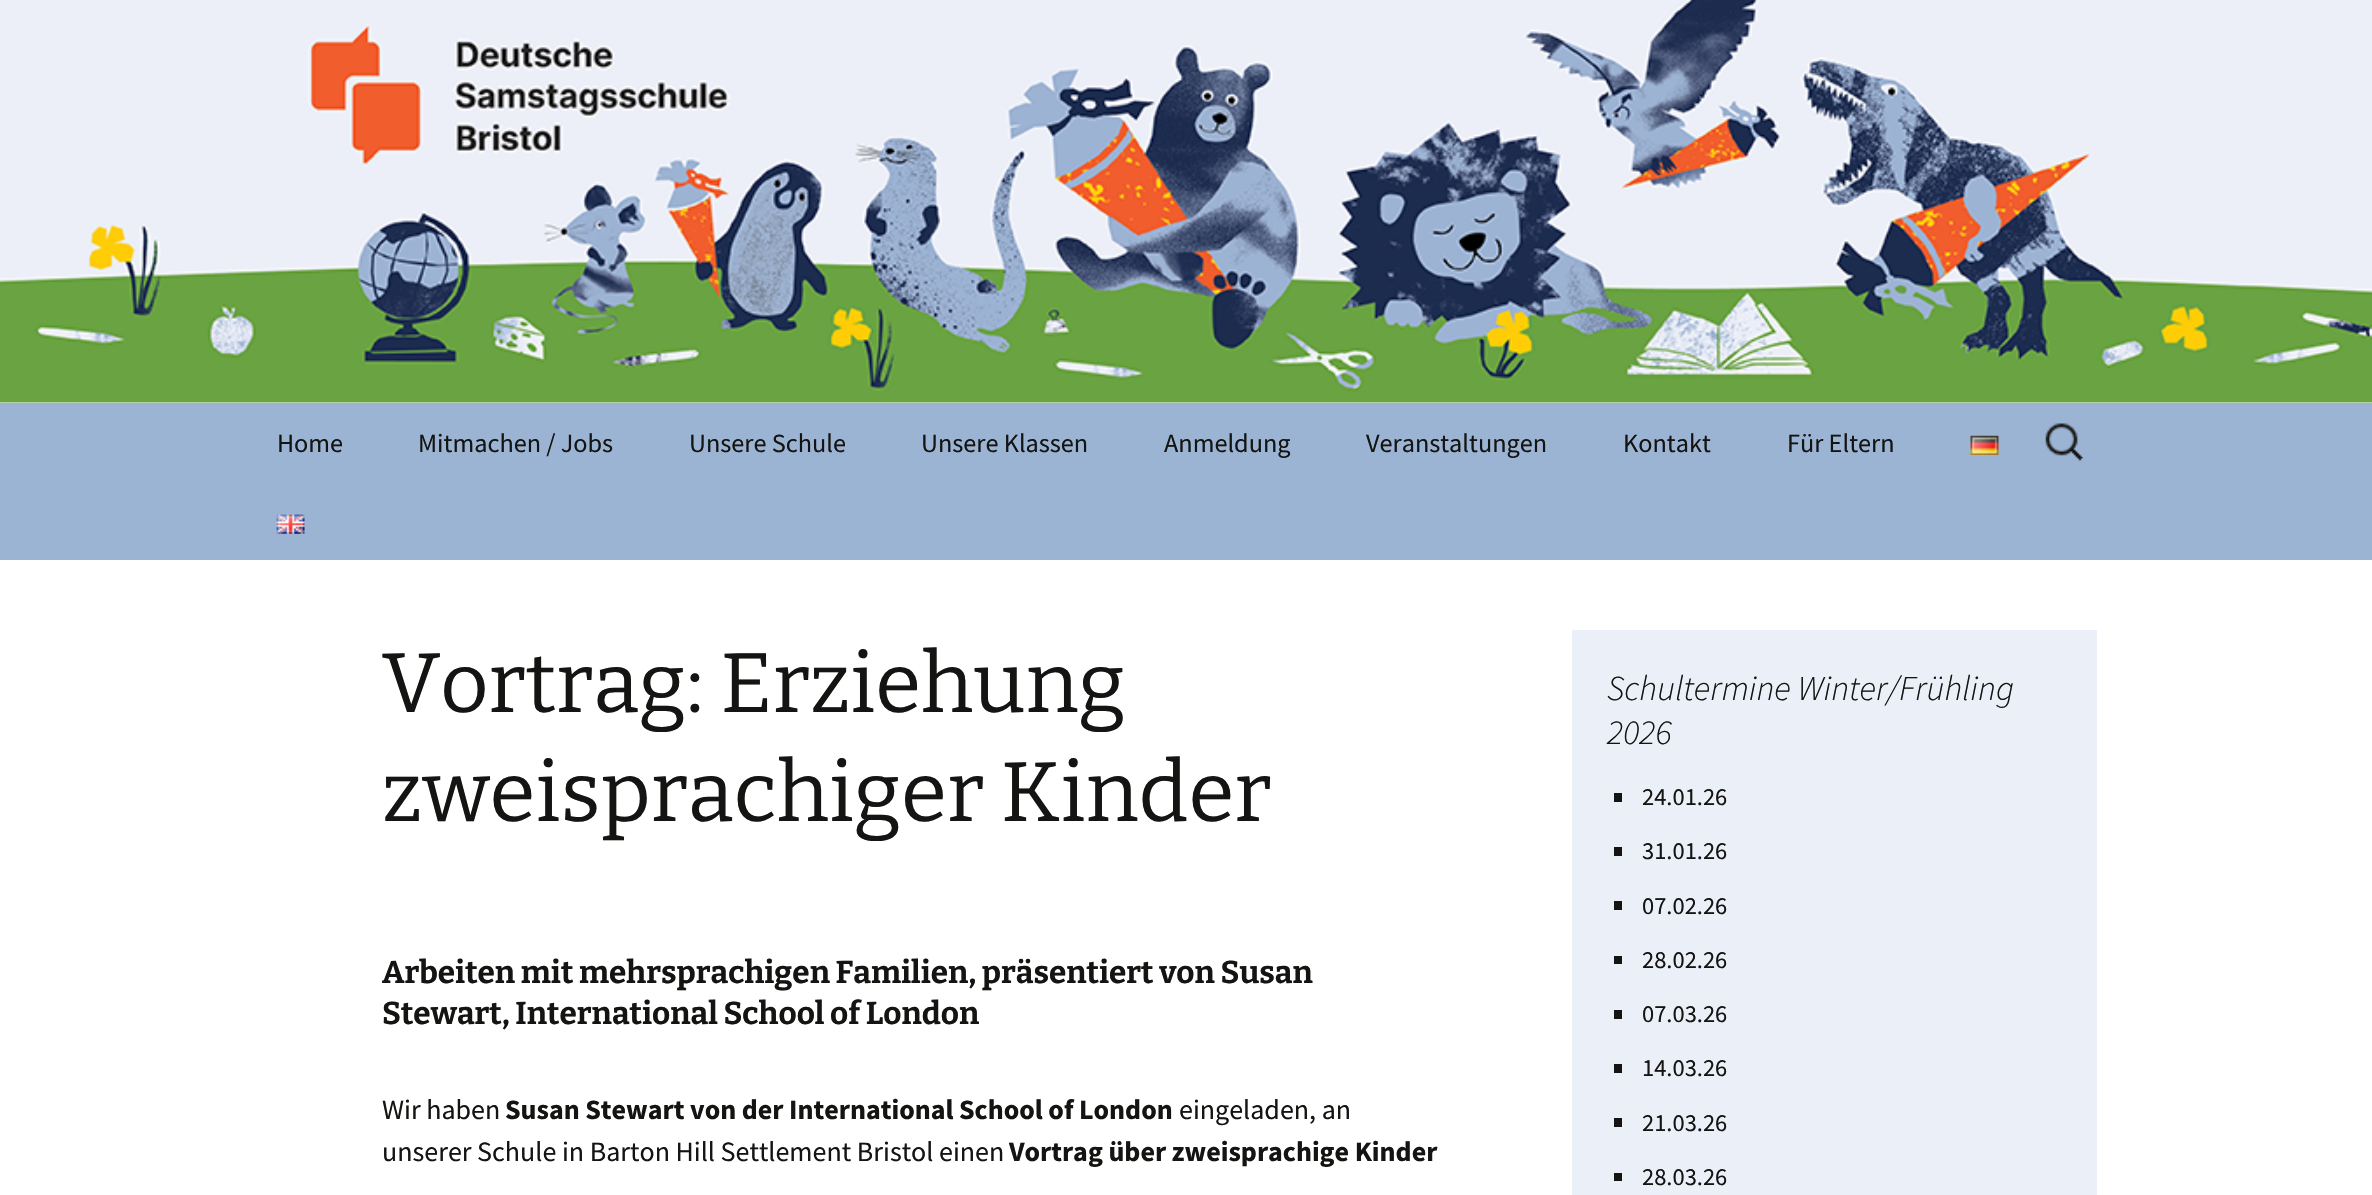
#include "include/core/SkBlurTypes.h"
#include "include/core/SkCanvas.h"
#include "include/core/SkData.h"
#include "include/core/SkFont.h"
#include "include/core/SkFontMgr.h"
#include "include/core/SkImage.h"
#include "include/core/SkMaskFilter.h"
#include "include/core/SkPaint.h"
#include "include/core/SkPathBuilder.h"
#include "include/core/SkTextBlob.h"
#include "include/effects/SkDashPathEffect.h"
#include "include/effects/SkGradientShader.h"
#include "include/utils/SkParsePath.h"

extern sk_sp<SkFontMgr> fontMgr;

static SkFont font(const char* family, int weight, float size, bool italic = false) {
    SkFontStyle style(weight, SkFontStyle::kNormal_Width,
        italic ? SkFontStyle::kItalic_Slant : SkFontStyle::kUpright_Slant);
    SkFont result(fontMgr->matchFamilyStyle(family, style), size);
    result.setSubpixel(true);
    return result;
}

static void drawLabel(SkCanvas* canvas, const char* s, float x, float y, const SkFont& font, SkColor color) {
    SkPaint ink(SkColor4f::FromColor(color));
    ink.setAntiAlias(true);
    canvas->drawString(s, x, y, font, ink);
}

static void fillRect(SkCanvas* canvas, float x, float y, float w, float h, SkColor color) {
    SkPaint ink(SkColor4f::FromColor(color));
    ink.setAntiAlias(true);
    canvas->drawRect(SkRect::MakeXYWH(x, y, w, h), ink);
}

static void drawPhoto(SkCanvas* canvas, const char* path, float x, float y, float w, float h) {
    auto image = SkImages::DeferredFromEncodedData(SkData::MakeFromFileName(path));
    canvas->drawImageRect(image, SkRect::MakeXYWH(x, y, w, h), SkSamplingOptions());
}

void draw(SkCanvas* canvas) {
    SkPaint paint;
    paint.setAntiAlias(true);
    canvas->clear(0xFFFFFFFF);
    drawPhoto(canvas, "assets/img1.png", 0, 0, 2372, 403);
    fillRect(canvas, 0, 403, 2372, 157, 0xFF9CB4D3);
    SkFont font1 = font("Source Sans Pro", 400, 26.25f);
    drawLabel(canvas, "Home", 277, 452, font1, 0xFF141412);
    drawLabel(canvas, "Mitmachen / Jobs", 418, 452, font1, 0xFF141412);
    drawLabel(canvas, "Unsere Schule", 689, 452, font1, 0xFF141412);
    drawLabel(canvas, "Unsere Klassen", 921, 452, font1, 0xFF141412);
    drawLabel(canvas, "Anmeldung", 1164, 452, font1, 0xFF141412);
    drawLabel(canvas, "Veranstaltungen", 1366, 452, font1, 0xFF141412);
    drawLabel(canvas, "Kontakt", 1623, 452, font1, 0xFF141412);
    drawLabel(canvas, "Für Eltern", 1787, 452, font1, 0xFF141412);
    drawPhoto(canvas, "assets/img2.png", 1970, 435, 29, 20);
    drawPhoto(canvas, "assets/img3.png", 276, 514, 29, 20);
    drawPhoto(canvas, "assets/img4.png", 2045, 423, 38, 38);
    SkFont font2 = font("Bitter", 100, 84);
    drawLabel(canvas, "Vortrag: Erziehung", 382, 712, font2, 0xFF141412);
    drawLabel(canvas, "zweisprachiger Kinder", 382, 821, font2, 0xFF141412);
    SkFont font3 = font("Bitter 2", 100, 31.5f);
    drawLabel(canvas, "Arbeiten mit mehrsprachigen Familien, präsentiert von Susan", 382, 983, font3, 0xFF141412);
    drawLabel(canvas, "Stewart, International School of London", 382, 1024, font3, 0xFF141412);
    SkFont font4 = font("Source Sans Pro", 400, 28);
    drawLabel(canvas, "Wir haben", 382, 1119, font4, 0xFF141412);
    SkFont font5 = font("Source Sans Pro", 700, 28);
    drawLabel(canvas, "Susan Stewart von der International School of London", 505, 1119, font5, 0xFF141412);
    drawLabel(canvas, "eingeladen, an", 1179, 1119, font4, 0xFF141412);
    drawLabel(canvas, "unserer Schule in Barton Hill Settlement Bristol einen", 382, 1161, font4, 0xFF141412);
    drawLabel(canvas, "Vortrag über zweisprachige Kinder", 1009, 1161, font5, 0xFF141412);
    fillRect(canvas, 1572, 630, 525, 565, 0xFFEBEFF8);
    SkFont font6 = font("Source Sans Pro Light", 300, 35, true);
    drawLabel(canvas, "Schultermine Winter/Frühling", 1607, 700, font6, 0xFF141412);
    drawLabel(canvas, "2026", 1607, 744, font6, 0xFF141412);
    fillRect(canvas, 1614, 793, 8, 9, 0xFF141412);
    SkFont font7 = font("Source Sans Pro", 400, 24.5f);
    drawLabel(canvas, "24.01.26", 1642, 805, font7, 0xFF141412);
    fillRect(canvas, 1614, 847, 8, 9, 0xFF141412);
    drawLabel(canvas, "31.01.26", 1642, 859, font7, 0xFF141412);
    fillRect(canvas, 1614, 901, 8, 9, 0xFF141412);
    drawLabel(canvas, "07.02.26", 1642, 914, font7, 0xFF141412);
    fillRect(canvas, 1614, 956, 8, 8, 0xFF141412);
    drawLabel(canvas, "28.02.26", 1642, 968, font7, 0xFF141412);
    fillRect(canvas, 1614, 1010, 8, 9, 0xFF141412);
    drawLabel(canvas, "07.03.26", 1642, 1022, font7, 0xFF141412);
    fillRect(canvas, 1614, 1064, 8, 9, 0xFF141412);
    drawLabel(canvas, "14.03.26", 1642, 1076, font7, 0xFF141412);
    fillRect(canvas, 1614, 1118, 8, 9, 0xFF141412);
    drawLabel(canvas, "21.03.26", 1642, 1131, font7, 0xFF141412);
    fillRect(canvas, 1614, 1173, 8, 8, 0xFF141412);
    drawLabel(canvas, "28.03.26", 1642, 1185, font7, 0xFF141412);
}
